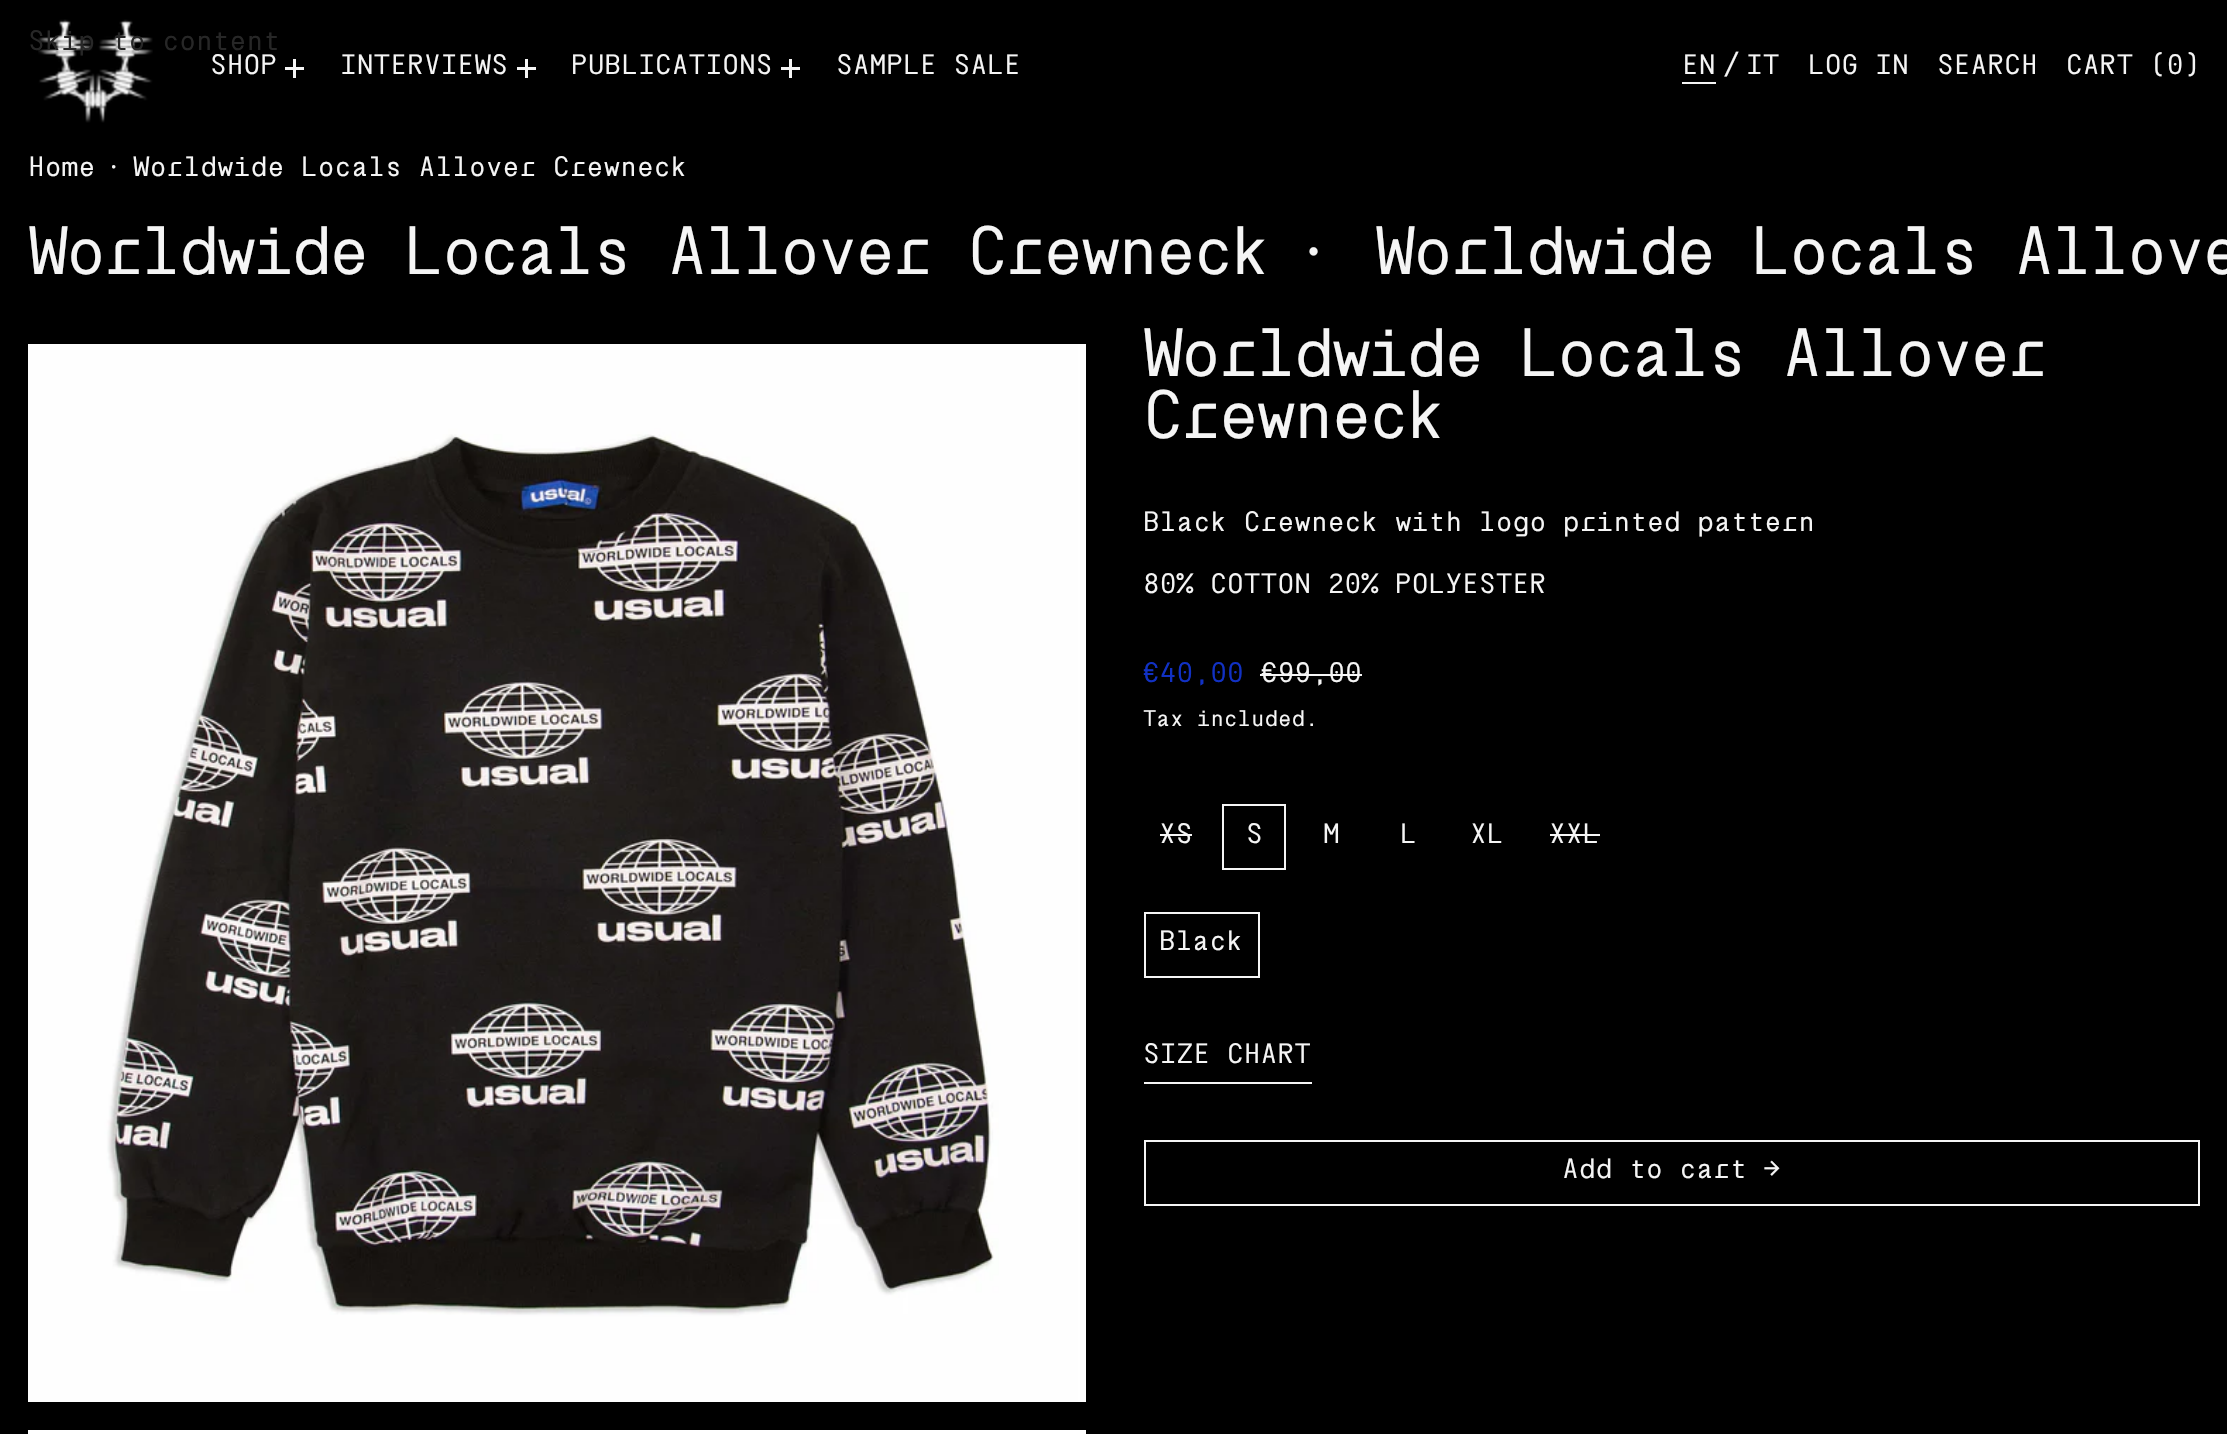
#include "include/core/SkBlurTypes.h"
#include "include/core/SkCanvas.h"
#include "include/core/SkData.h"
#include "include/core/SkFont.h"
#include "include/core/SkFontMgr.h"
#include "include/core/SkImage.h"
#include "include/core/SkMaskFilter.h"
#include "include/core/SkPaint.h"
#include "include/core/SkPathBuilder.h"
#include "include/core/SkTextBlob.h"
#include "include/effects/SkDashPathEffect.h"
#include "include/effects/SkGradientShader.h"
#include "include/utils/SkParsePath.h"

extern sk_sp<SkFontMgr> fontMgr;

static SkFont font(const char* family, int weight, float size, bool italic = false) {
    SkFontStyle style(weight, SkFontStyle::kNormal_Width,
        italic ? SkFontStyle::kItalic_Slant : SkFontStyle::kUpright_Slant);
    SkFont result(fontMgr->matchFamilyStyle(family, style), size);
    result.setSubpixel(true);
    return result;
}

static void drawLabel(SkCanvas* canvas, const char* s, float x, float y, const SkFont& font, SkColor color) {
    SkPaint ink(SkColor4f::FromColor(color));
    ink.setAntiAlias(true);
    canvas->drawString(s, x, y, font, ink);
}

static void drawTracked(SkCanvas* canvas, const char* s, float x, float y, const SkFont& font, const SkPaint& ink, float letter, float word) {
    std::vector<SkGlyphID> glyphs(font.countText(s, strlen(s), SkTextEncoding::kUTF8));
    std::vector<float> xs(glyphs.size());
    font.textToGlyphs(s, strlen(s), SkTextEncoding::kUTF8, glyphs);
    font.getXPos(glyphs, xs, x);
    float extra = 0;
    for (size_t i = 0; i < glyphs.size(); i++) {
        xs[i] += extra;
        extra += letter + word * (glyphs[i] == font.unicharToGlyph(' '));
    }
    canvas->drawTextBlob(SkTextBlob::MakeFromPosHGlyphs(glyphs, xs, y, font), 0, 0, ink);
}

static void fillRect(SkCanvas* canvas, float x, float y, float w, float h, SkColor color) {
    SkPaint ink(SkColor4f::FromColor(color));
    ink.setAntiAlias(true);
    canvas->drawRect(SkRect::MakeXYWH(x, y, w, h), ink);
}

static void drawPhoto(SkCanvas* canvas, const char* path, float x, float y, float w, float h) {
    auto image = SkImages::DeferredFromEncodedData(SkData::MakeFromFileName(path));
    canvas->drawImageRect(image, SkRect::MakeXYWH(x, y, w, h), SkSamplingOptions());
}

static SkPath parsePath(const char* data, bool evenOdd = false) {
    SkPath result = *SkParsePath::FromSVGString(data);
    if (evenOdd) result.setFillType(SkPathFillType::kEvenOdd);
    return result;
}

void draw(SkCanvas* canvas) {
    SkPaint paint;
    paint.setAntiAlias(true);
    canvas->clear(0xFF000000);
    drawPhoto(canvas, "assets/img1.png", 38, 19, 115, 104);
    SkFont font1 = font("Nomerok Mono", 400, 28);
    drawLabel(canvas, "Skip to content", 28, 50, font1, 0xFF272727);
    drawLabel(canvas, "SHOP", 210, 74, font1, 0xFFF5F5F5);
    paint.setStroke(true);
    paint.setStrokeWidth(3);
    paint.setColor(0xFFF5F5F5);
    canvas->drawPath(parsePath("M294.5 59V78M285 68.5H304"), paint);
    drawLabel(canvas, "INTERVIEWS", 340, 74, font1, 0xFFF5F5F5);
    canvas->drawPath(parsePath("M526.5 59V78M517 68.5H536"), paint);
    drawLabel(canvas, "PUBLICATIONS", 571, 74, font1, 0xFFF5F5F5);
    canvas->drawPath(parsePath("M790.5 59V78M781 68.5H800"), paint);
    drawLabel(canvas, "SAMPLE SALE", 836, 74, font1, 0xFFF5F5F5);
    drawLabel(canvas, "EN", 1682, 74, font1, 0xFFF5F5F5);
    fillRect(canvas, 1682, 82, 34, 2, 0xFFF5F5F5);
    drawLabel(canvas, "/", 1723, 74, font1, 0xFFF5F5F5);
    drawLabel(canvas, "IT", 1746, 74, font1, 0xFFF5F5F5);
    drawLabel(canvas, "LOG IN", 1808, 74, font1, 0xFFF5F5F5);
    drawLabel(canvas, "SEARCH", 1937, 74, font1, 0xFFF5F5F5);
    drawLabel(canvas, "CART (0)", 2066, 74, font1, 0xFFF5F5F5);
    drawLabel(canvas, "Home", 28, 176, font1, 0xFFF5F5F5);
    SkFont font2 = font("Liberation Serif", 400, 28);
    drawLabel(canvas, "·", 109, 176, font2, 0xFFF5F5F5);
    drawLabel(canvas, "Worldwide Locals Allover Crewneck", 133, 176, font1, 0xFFF5F5F5);
    SkFont font3 = font("Nomerok Mono", 400, 68.3f);
    paint.setStroke(false);
    drawTracked(canvas, "Worldwide Locals Allover Crewneck", 28, 274, font3, paint, -3.4f, 0);
    SkFont font4 = font("Liberation Serif", 400, 68.3f);
    drawTracked(canvas, "∙", 1305, 274, font4, paint, -3.4f, 0);
    drawTracked(canvas, "Worldwide Locals Allove", 1375, 274, font3, paint, -3.4f, 0);
    drawPhoto(canvas, "assets/img2.png", 28, 344, 1058, 1058);
    fillRect(canvas, 28, 1430, 1058, 4, 0xFFFFFFFF);
    drawTracked(canvas, "Worldwide Locals Allover", 1143, 376, font3, paint, -3.4f, 0);
    drawTracked(canvas, "Crewneck", 1143, 438, font3, paint, -3.4f, 0);
    drawLabel(canvas, "Black Crewneck with logo printed pattern", 1143, 531, font1, 0xFFF5F5F5);
    drawLabel(canvas, "80% COTTON 20% POLYESTER", 1143, 593, font1, 0xFFF5F5F5);
    drawLabel(canvas, "€40,00", 1143, 682, font1, 0xFF1131C4);
    drawLabel(canvas, "€99,00", 1261, 682, font1, 0xFFF5F5F5);
    fillRect(canvas, 1260, 674, 102, 2, 0xFFF5F5F5);
    SkFont font5 = font("Nomerok Mono", 400, 22.5f);
    drawLabel(canvas, "Tax included.", 1143, 726, font5, 0xFFF5F5F5);
    drawLabel(canvas, "XS", 1159, 843, font1, 0xFFF5F5F5);
    fillRect(canvas, 1160, 834, 32, 2, 0xFFF5F5F5);
    paint.setStroke(true);
    paint.setStrokeWidth(2);
    canvas->drawRect(SkRect::MakeXYWH(1223, 805, 62, 64), paint);
    drawLabel(canvas, "S", 1246, 843, font1, 0xFFF5F5F5);
    drawLabel(canvas, "M", 1323, 843, font1, 0xFFF5F5F5);
    drawLabel(canvas, "L", 1400, 843, font1, 0xFFF5F5F5);
    drawLabel(canvas, "XL", 1470, 843, font1, 0xFFF5F5F5);
    drawLabel(canvas, "XXL", 1549, 843, font1, 0xFFF5F5F5);
    fillRect(canvas, 1550, 834, 50, 2, 0xFFF5F5F5);
    canvas->drawRect(SkRect::MakeXYWH(1145, 913, 114, 64), paint);
    drawLabel(canvas, "Black", 1159, 950, font1, 0xFFF5F5F5);
    fillRect(canvas, 1144, 1082, 168, 2, 0xFFF5F5F5);
    drawLabel(canvas, "SIZE CHART", 1143, 1063, font1, 0xFFF5F5F5);
    canvas->drawRect(SkRect::MakeXYWH(1145, 1141, 1054, 64), paint);
    drawLabel(canvas, "Add to cart →", 1562, 1178, font1, 0xFFF5F5F5);
}
